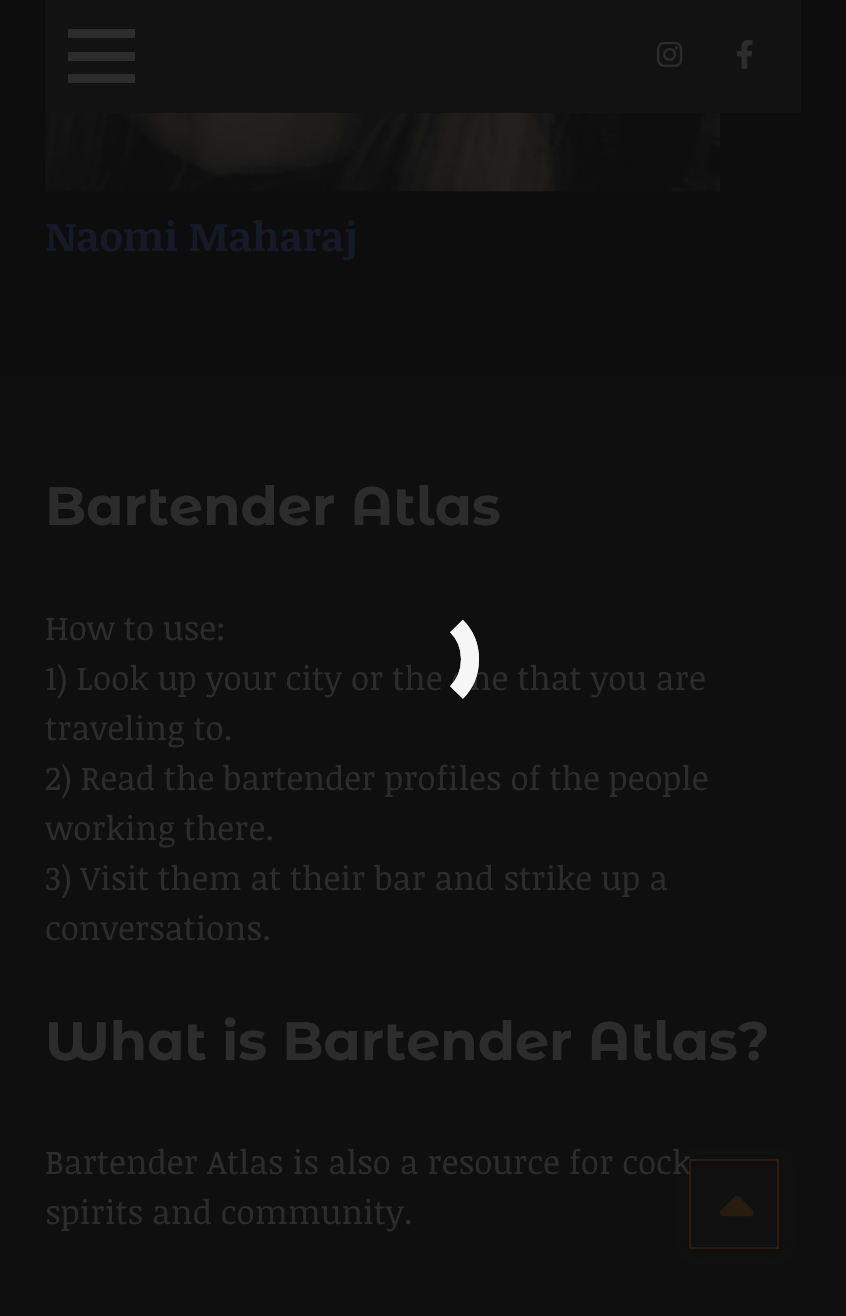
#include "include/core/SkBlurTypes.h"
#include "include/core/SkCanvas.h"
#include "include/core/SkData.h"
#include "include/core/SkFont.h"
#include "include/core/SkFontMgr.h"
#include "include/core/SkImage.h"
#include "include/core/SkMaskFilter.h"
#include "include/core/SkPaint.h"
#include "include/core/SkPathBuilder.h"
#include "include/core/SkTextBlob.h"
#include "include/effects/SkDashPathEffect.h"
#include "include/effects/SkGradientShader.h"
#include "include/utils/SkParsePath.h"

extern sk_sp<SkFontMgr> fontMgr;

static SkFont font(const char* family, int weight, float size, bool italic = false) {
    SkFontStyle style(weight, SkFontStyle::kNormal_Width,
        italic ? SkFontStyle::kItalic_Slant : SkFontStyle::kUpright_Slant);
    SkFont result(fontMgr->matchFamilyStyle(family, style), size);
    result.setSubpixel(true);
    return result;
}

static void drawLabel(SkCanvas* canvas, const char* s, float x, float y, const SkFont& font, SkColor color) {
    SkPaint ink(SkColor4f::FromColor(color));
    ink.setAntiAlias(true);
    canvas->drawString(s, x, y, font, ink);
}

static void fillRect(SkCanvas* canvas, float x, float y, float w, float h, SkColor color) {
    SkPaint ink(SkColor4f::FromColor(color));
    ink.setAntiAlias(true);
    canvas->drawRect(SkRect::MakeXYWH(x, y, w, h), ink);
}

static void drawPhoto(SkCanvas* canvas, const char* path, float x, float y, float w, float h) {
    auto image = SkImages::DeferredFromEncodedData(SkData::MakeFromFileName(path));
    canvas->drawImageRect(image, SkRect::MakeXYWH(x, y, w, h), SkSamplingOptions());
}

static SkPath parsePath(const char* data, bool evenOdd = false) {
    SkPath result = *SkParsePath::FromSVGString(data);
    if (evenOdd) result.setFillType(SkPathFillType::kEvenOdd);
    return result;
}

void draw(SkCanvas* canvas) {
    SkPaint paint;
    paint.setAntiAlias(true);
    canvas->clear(0xFF0E0D0D);
    fillRect(canvas, 45, 0, 756, 113, 0xFF131212);
    fillRect(canvas, 68, 29, 67, 9, 0xFF2D2C2C);
    fillRect(canvas, 68, 52, 67, 9, 0xFF2D2C2C);
    fillRect(canvas, 68, 74, 67, 9, 0xFF2D2C2C);
    drawPhoto(canvas, "assets/img1.png", 657, 41, 26, 27);
    drawPhoto(canvas, "assets/img2.png", 737, 40, 16, 29);
    drawPhoto(canvas, "assets/img3.png", 45, 113, 675, 79);
    SkFont font1 = font("Noticia Text", 700, 40.5f);
    drawLabel(canvas, "Naomi Maharaj", 45, 251, font1, 0xFF161A28);
    fillRect(canvas, 0, 376, 846, 940, 0xFF100F10);
    SkFont font2 = font("Montserrat Alternates", 700, 54);
    drawLabel(canvas, "Bartender Atlas", 45, 525, font2, 0xFF2D2C2C);
    SkFont font3 = font("Noticia Text", 400, 33.25f);
    drawLabel(canvas, "How to use:", 45, 640, font3, 0xFF2D2C2C);
    drawLabel(canvas, "1) Look up your city or the one that you are", 45, 690, font3, 0xFF2D2C2C);
    drawLabel(canvas, "traveling to.", 45, 740, font3, 0xFF2D2C2C);
    drawLabel(canvas, "2) Read the bartender profiles of the people", 45, 790, font3, 0xFF2D2C2C);
    drawLabel(canvas, "working there.", 45, 840, font3, 0xFF2D2C2C);
    drawLabel(canvas, "3) Visit them at their bar and strike up a", 45, 890, font3, 0xFF2D2C2C);
    drawLabel(canvas, "conversations.", 45, 940, font3, 0xFF2D2C2C);
    drawLabel(canvas, "What is Bartender Atlas?", 45, 1060, font2, 0xFF2D2C2C);
    drawLabel(canvas, "Bartender Atlas is also a resource for cock", 45, 1174, font3, 0xFF2D2C2C);
    drawLabel(canvas, "spirits and community.", 45, 1224, font3, 0xFF2D2C2C);
    paint.setStroke(true);
    paint.setStrokeWidth(18);
    paint.setColor(0xA8FFFFFF);
    canvas->drawPath(parsePath("M456.5 626C474.5 644 474.5 674.5 456.5 692.5"), paint);
    canvas->drawPath(parsePath("M456.5 626C474.5 644 474.5 674.5 456.5 692.5"), paint);
    canvas->drawPath(parsePath("M456.5 626C474.5 644 474.5 674.5 456.5 692.5"), paint);
    paint.setStroke(false);
    paint.setColor(0xED0E0D0D);
    paint.setMaskFilter(SkMaskFilter::MakeBlur(kNormal_SkBlurStyle, 4.5f));
    canvas->drawRect(SkRect::MakeXYWH(691, 1161, 90, 90), paint);
    paint.setMaskFilter(nullptr);
    fillRect(canvas, 691, 1166, 85, 80, 0xFF111010);
    paint.setStroke(true);
    paint.setStrokeWidth(2);
    paint.setColor(0xFF2D1D0E);
    canvas->drawRect(SkRect::MakeXYWH(690, 1160, 88, 88), paint);
    drawPhoto(canvas, "assets/img4.png", 720, 1195, 34, 22);
}
